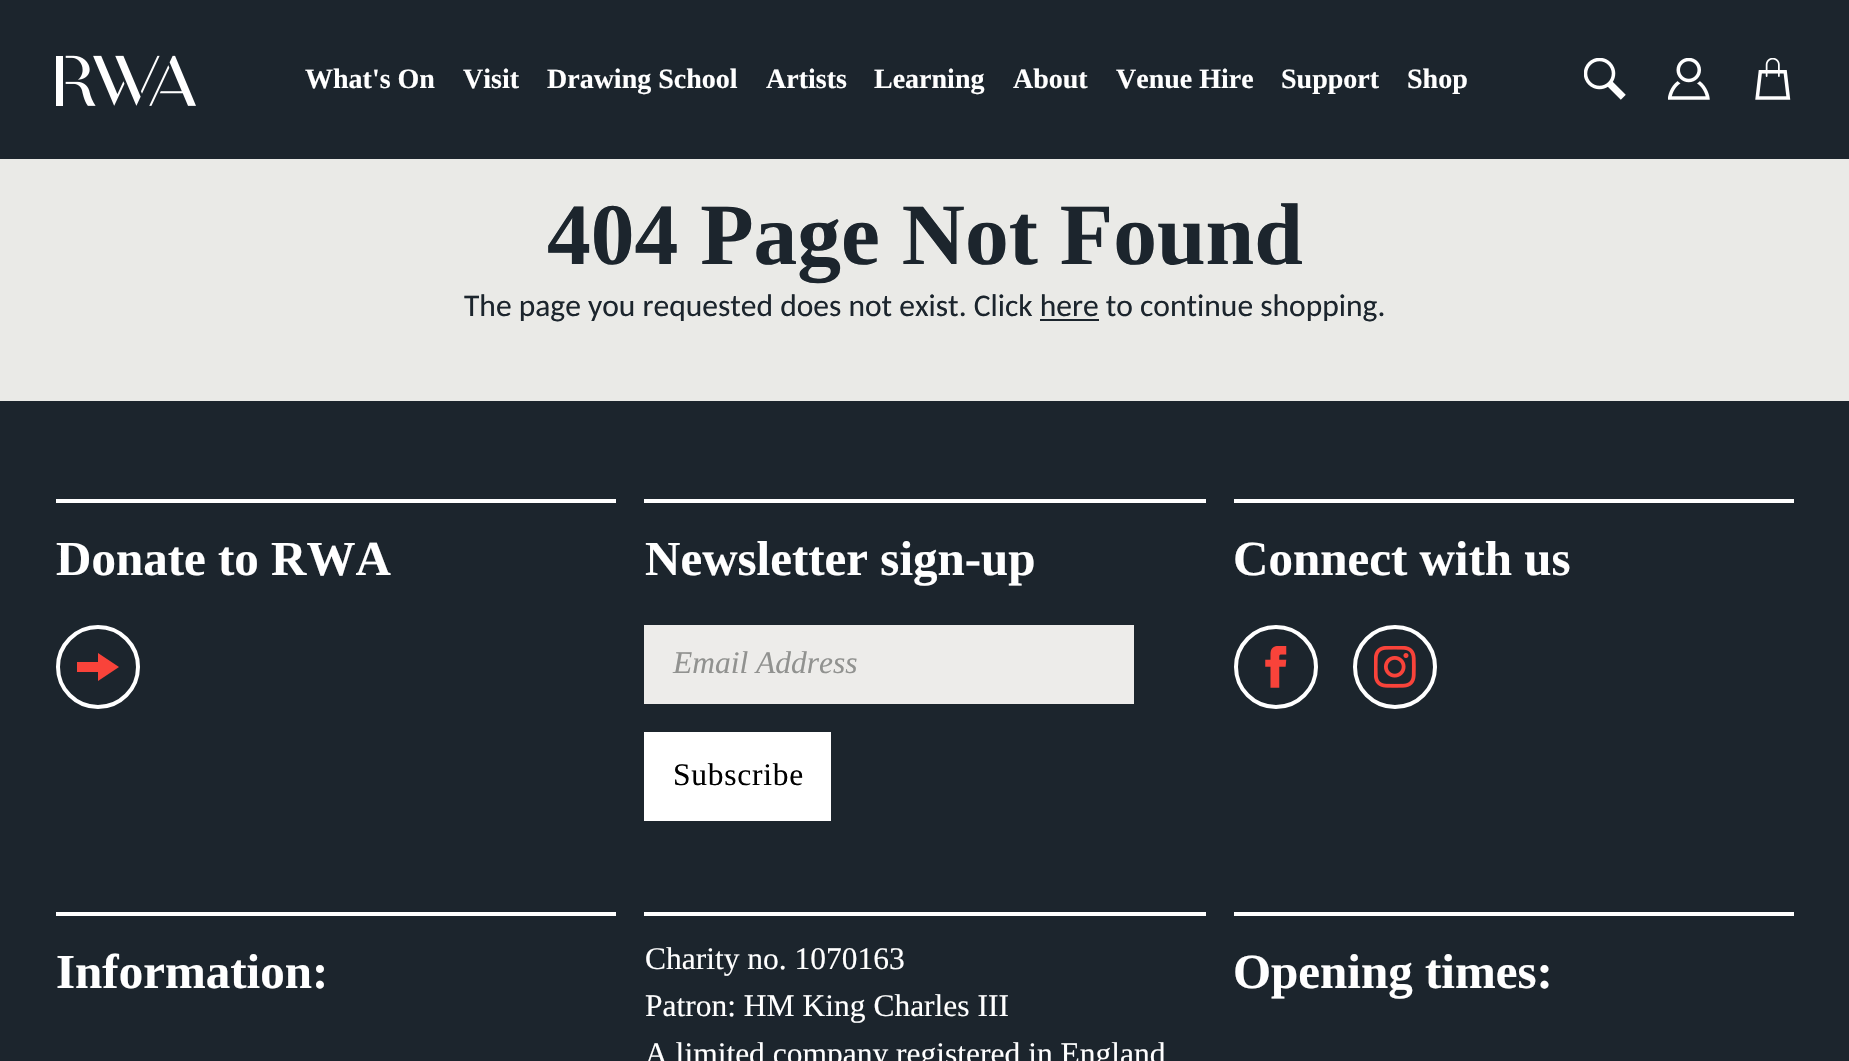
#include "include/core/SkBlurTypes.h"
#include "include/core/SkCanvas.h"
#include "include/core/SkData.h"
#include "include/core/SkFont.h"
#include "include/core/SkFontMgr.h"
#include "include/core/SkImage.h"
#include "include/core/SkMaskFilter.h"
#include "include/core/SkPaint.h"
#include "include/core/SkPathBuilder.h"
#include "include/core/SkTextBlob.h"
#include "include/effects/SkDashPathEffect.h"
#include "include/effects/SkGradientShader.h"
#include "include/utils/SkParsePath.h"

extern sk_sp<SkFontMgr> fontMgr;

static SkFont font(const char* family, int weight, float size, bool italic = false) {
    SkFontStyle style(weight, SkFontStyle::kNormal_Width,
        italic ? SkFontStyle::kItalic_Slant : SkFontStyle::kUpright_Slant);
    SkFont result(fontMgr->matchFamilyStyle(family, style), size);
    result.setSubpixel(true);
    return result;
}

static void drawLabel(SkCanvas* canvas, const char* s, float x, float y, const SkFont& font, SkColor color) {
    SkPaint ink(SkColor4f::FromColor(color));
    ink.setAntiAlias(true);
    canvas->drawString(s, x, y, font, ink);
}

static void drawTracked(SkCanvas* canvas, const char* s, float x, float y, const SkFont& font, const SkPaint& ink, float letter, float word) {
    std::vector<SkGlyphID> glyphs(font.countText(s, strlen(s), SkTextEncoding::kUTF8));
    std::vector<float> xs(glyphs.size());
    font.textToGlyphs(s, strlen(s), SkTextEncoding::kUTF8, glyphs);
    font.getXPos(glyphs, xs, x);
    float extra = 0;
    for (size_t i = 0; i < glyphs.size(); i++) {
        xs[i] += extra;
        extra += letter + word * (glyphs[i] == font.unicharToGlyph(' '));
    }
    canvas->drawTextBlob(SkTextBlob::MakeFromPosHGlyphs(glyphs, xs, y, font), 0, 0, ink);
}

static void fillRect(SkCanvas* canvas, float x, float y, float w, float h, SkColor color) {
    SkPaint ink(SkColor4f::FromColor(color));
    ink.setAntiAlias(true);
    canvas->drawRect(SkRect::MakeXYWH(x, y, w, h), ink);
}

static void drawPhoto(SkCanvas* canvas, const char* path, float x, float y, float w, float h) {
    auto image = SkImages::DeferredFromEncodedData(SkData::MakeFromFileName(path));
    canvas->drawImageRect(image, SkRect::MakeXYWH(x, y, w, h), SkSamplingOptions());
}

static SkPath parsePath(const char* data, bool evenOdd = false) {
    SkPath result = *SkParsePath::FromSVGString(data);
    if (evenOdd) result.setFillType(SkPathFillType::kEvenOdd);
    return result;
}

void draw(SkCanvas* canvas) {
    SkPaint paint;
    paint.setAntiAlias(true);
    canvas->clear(0xFFEAEAE7);
    fillRect(canvas, 0, 0, 1849, 159, 0xFF1C252D);
    drawPhoto(canvas, "assets/img1.png", 56, 55, 140, 51);
    SkFont font1 = font("Liberation Serif", 700, 28);
    drawLabel(canvas, "What's On", 305, 88, font1, 0xFFFFFFFF);
    drawLabel(canvas, "Visit", 463, 88, font1, 0xFFFFFFFF);
    drawLabel(canvas, "Drawing School", 547, 88, font1, 0xFFFFFFFF);
    drawLabel(canvas, "Artists", 766, 88, font1, 0xFFFFFFFF);
    drawLabel(canvas, "Learning", 874, 88, font1, 0xFFFFFFFF);
    drawLabel(canvas, "About", 1013, 88, font1, 0xFFFFFFFF);
    drawLabel(canvas, "Venue Hire", 1116, 88, font1, 0xFFFFFFFF);
    drawLabel(canvas, "Support", 1281, 88, font1, 0xFFFFFFFF);
    drawLabel(canvas, "Shop", 1407, 88, font1, 0xFFFFFFFF);
    drawPhoto(canvas, "assets/img2.png", 1584, 58, 42, 42);
    drawPhoto(canvas, "assets/img3.png", 1668, 58, 42, 42);
    drawPhoto(canvas, "assets/img4.png", 1755, 58, 36, 42);
    SkFont font2 = font("Liberation Serif", 700, 87.5f);
    drawLabel(canvas, "404 Page Not Found", 547, 264, font2, 0xFF1C252D);
    SkFont font3 = font("Carlito", 400, 31.5f);
    drawLabel(canvas, "The page you requested does not exist. Click here to continue shopping.", 464, 316, font3, 0xFF1C252D);
    fillRect(canvas, 1040, 319, 59, 2, 0xFF1C252D);
    fillRect(canvas, 0, 401, 1849, 660, 0xFF1C252D);
    fillRect(canvas, 56, 499, 560, 4, 0xFFFFFFFF);
    SkFont font4 = font("Liberation Serif", 700, 49);
    drawLabel(canvas, "Donate to RWA", 56, 575, font4, 0xFFFFFFFF);
    paint.setStroke(true);
    paint.setStrokeWidth(4);
    paint.setColor(0xFFFFFFFF);
    canvas->drawCircle(98, 667, 40, paint);
    paint.setStroke(false);
    paint.setColor(0xFFF9433A);
    canvas->drawPath(parsePath("M119 667L98 653V662H77V672H98V681Z"), paint);
    fillRect(canvas, 644, 499, 562, 4, 0xFFFFFFFF);
    drawLabel(canvas, "Newsletter sign-up", 645, 575, font4, 0xFFFFFFFF);
    fillRect(canvas, 644, 625, 490, 79, 0xFFEDECEA);
    SkFont font5 = font("Liberation Serif", 400, 31.5f, true);
    drawLabel(canvas, "Email Address", 673, 673, font5, 0xFF919290);
    fillRect(canvas, 644, 732, 187, 89, 0xFFFFFFFF);
    SkFont font6 = font("Liberation Serif", 400, 31.5f);
    paint.setColor(0xFF000000);
    drawTracked(canvas, "Subscribe", 673, 785, font6, paint, 0.75f, 0);
    fillRect(canvas, 1234, 499, 560, 4, 0xFFFFFFFF);
    drawLabel(canvas, "Connect with us", 1233, 575, font4, 0xFFFFFFFF);
    paint.setStroke(true);
    paint.setColor(0xFFFFFFFF);
    canvas->drawCircle(1276, 667, 40, paint);
    drawPhoto(canvas, "assets/img5.png", 1265, 646, 22, 42);
    canvas->drawCircle(1395, 667, 40, paint);
    drawPhoto(canvas, "assets/img6.png", 1374, 646, 42, 42);
    fillRect(canvas, 56, 912, 560, 4, 0xFFFFFFFF);
    drawLabel(canvas, "Information:", 56, 988, font4, 0xFFFFFFFF);
    fillRect(canvas, 644, 912, 562, 4, 0xFFFFFFFF);
    drawLabel(canvas, "Charity no. 1070163", 645, 969, font6, 0xFFFFFFFF);
    drawLabel(canvas, "Patron: HM King Charles III", 645, 1016, font6, 0xFFFFFFFF);
    drawLabel(canvas, "A limited company registered in England", 645, 1064, font6, 0xFFFFFFFF);
    fillRect(canvas, 1234, 912, 560, 4, 0xFFFFFFFF);
    drawLabel(canvas, "Opening times:", 1233, 988, font4, 0xFFFFFFFF);
}
